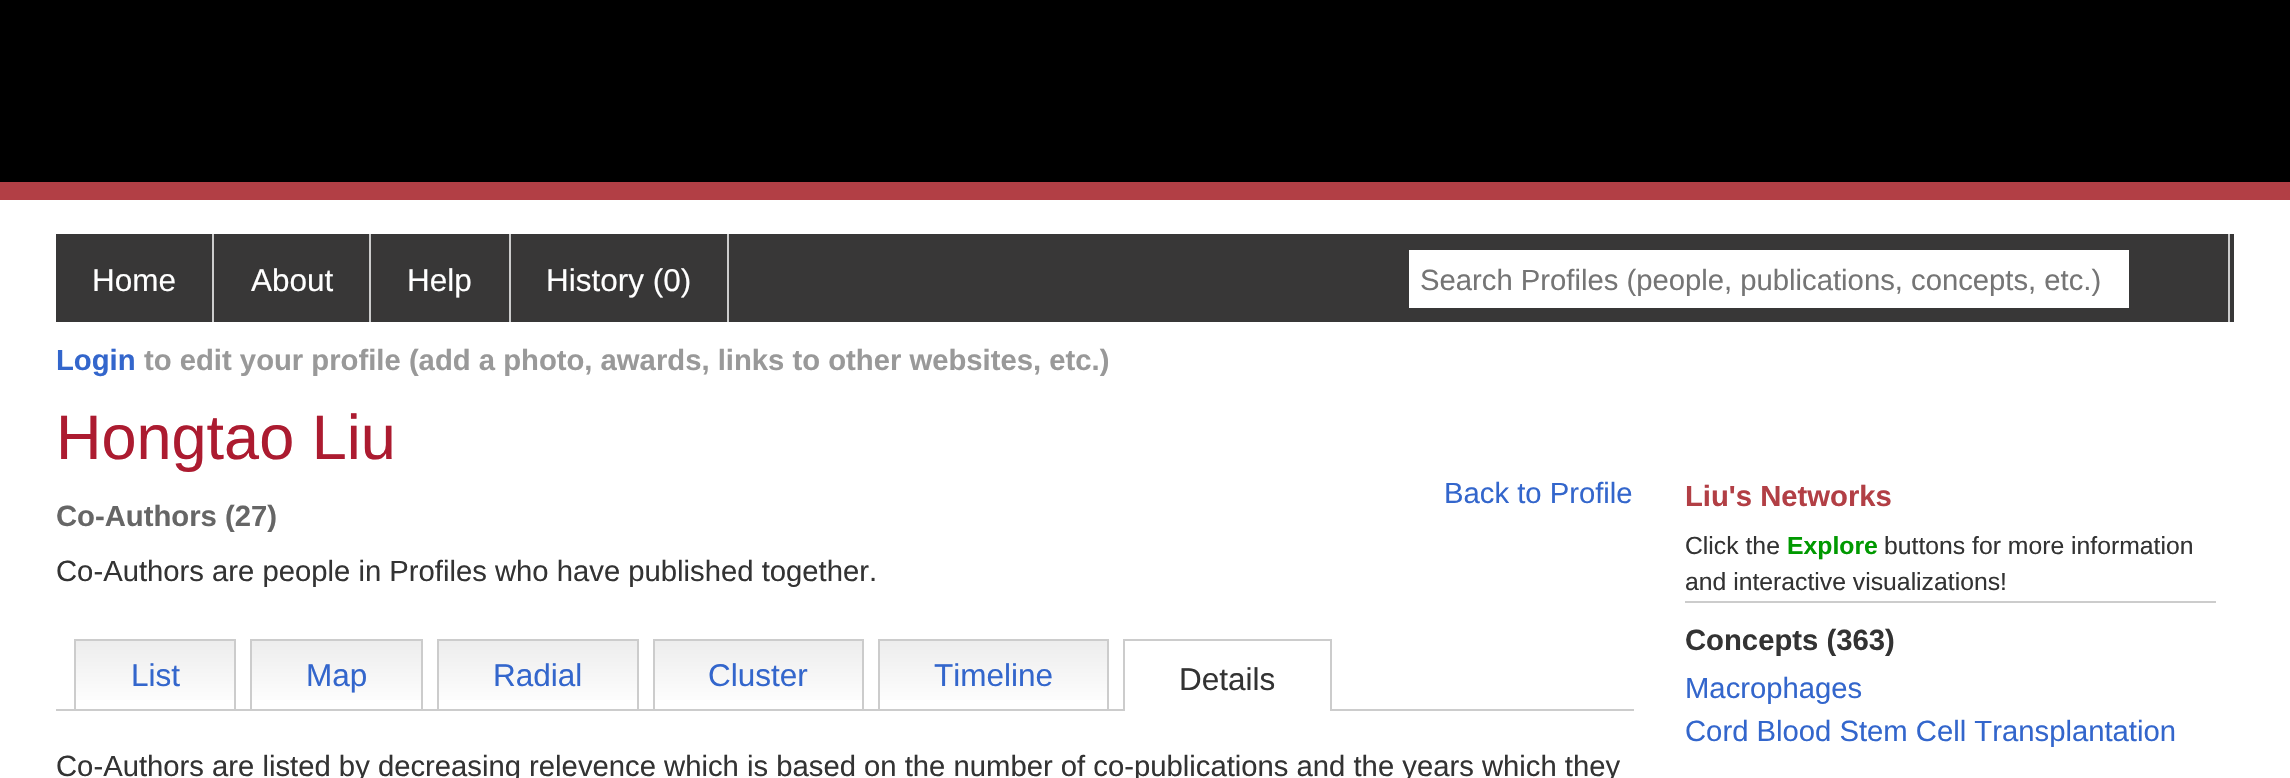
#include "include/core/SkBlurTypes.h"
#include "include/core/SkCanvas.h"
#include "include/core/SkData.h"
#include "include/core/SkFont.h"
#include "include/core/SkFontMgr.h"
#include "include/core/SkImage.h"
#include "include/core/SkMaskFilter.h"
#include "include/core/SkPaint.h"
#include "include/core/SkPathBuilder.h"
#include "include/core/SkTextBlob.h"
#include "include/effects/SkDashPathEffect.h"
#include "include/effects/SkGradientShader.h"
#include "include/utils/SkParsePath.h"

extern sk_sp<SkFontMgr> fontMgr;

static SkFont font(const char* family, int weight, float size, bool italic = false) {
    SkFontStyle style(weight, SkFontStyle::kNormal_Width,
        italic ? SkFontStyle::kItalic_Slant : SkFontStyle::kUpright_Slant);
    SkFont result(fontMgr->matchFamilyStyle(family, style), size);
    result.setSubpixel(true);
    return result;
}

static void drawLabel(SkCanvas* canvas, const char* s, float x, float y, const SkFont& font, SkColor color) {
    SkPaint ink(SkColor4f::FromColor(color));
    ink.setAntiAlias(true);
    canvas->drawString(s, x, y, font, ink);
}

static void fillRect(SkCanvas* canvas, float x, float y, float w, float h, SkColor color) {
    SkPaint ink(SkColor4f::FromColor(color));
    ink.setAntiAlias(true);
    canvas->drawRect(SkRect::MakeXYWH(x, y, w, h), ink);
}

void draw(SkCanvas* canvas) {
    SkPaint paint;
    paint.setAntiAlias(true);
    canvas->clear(0xFFFFFFFF);
    fillRect(canvas, 0, 0, 2290, 182, 0xFF000000);
    fillRect(canvas, 0, 182, 2290, 18, 0xFFB23F45);
    fillRect(canvas, 56, 234, 2178, 88, 0xFF383737);
    fillRect(canvas, 212, 234, 2, 88, 0xFFCCCCCC);
    SkFont font1 = font("Liberation Sans", 400, 31.5f);
    drawLabel(canvas, "Home", 92, 291, font1, 0xFFFFFFFF);
    fillRect(canvas, 369, 234, 2, 88, 0xFFCCCCCC);
    drawLabel(canvas, "About", 251, 291, font1, 0xFFFFFFFF);
    fillRect(canvas, 509, 234, 2, 88, 0xFFCCCCCC);
    drawLabel(canvas, "Help", 407, 291, font1, 0xFFFFFFFF);
    fillRect(canvas, 727, 234, 2, 88, 0xFFCCCCCC);
    drawLabel(canvas, "History (0)", 546, 291, font1, 0xFFFFFFFF);
    fillRect(canvas, 1409, 250, 720, 58, 0xFFFFFFFF);
    SkFont font2 = font("Liberation Sans", 400, 29.25f);
    drawLabel(canvas, "Search Profiles (people, publications, concepts, etc.)", 1420, 290, font2, 0xFF757575);
    fillRect(canvas, 2228, 234, 2, 88, 0xFFCCCCCC);
    SkFont font3 = font("Liberation Sans", 700, 29.25f);
    drawLabel(canvas, "Login", 56, 370, font3, 0xFF3366CC);
    drawLabel(canvas, "to edit your profile (add a photo, awards, links to other websites, etc.)", 144, 370, font3, 0xFF999999);
    SkFont font4 = font("Liberation Sans", 400, 63);
    drawLabel(canvas, "Hongtao Liu", 56, 459, font4, 0xFFAC1B30);
    drawLabel(canvas, "Back to Profile", 1444, 503, font2, 0xFF3366CC);
    drawLabel(canvas, "Co-Authors (27)", 56, 526, font3, 0xFF666666);
    drawLabel(canvas, "Co-Authors are people in Profiles who have published together.", 56, 581, font2, 0xFF333333);
    {
        const SkColor colors[] = {0xFFEDEDED, 0xFFFFFFFF};
        const float stops[] = {0, 1};
        const SkPoint ends[] = {{155, 641}, {155, 709}};
        paint.setShader(SkGradientShader::MakeLinear(ends, colors, stops, 2, SkTileMode::kClamp));
        paint.setAlpha(255);
    }
    canvas->drawRect(SkRect::MakeXYWH(76, 641, 158, 59), paint);
    fillRect(canvas, 74, 639, 162, 2, 0xFFCCCCCC);
    fillRect(canvas, 234, 639, 2, 70, 0xFFCCCCCC);
    fillRect(canvas, 74, 639, 2, 70, 0xFFCCCCCC);
    drawLabel(canvas, "List", 131, 686, font1, 0xFF3366CC);
    {
        const SkColor colors[] = {0xFFEDEDED, 0xFFFFFFFF};
        const float stops[] = {0, 1};
        const SkPoint ends[] = {{336, 641}, {336, 709}};
        paint.setShader(SkGradientShader::MakeLinear(ends, colors, stops, 2, SkTileMode::kClamp));
        paint.setAlpha(255);
    }
    canvas->drawRect(SkRect::MakeXYWH(252, 641, 169, 59), paint);
    fillRect(canvas, 250, 639, 173, 2, 0xFFCCCCCC);
    fillRect(canvas, 421, 639, 2, 70, 0xFFCCCCCC);
    fillRect(canvas, 250, 639, 2, 70, 0xFFCCCCCC);
    drawLabel(canvas, "Map", 306, 686, font1, 0xFF3366CC);
    {
        const SkColor colors[] = {0xFFEDEDED, 0xFFFFFFFF};
        const float stops[] = {0, 1};
        const SkPoint ends[] = {{538, 641}, {538, 709}};
        paint.setShader(SkGradientShader::MakeLinear(ends, colors, stops, 2, SkTileMode::kClamp));
        paint.setAlpha(255);
    }
    canvas->drawRect(SkRect::MakeXYWH(439, 641, 198, 59), paint);
    fillRect(canvas, 437, 639, 202, 2, 0xFFCCCCCC);
    fillRect(canvas, 637, 639, 2, 70, 0xFFCCCCCC);
    fillRect(canvas, 437, 639, 2, 70, 0xFFCCCCCC);
    drawLabel(canvas, "Radial", 493, 686, font1, 0xFF3366CC);
    {
        const SkColor colors[] = {0xFFEDEDED, 0xFFFFFFFF};
        const float stops[] = {0, 1};
        const SkPoint ends[] = {{758, 641}, {758, 709}};
        paint.setShader(SkGradientShader::MakeLinear(ends, colors, stops, 2, SkTileMode::kClamp));
        paint.setAlpha(255);
    }
    canvas->drawRect(SkRect::MakeXYWH(655, 641, 207, 59), paint);
    fillRect(canvas, 653, 639, 211, 2, 0xFFCCCCCC);
    fillRect(canvas, 862, 639, 2, 70, 0xFFCCCCCC);
    fillRect(canvas, 653, 639, 2, 70, 0xFFCCCCCC);
    drawLabel(canvas, "Cluster", 708, 686, font1, 0xFF3366CC);
    {
        const SkColor colors[] = {0xFFEDEDED, 0xFFFFFFFF};
        const float stops[] = {0, 1};
        const SkPoint ends[] = {{993, 641}, {993, 709}};
        paint.setShader(SkGradientShader::MakeLinear(ends, colors, stops, 2, SkTileMode::kClamp));
        paint.setAlpha(255);
    }
    canvas->drawRect(SkRect::MakeXYWH(880, 641, 227, 59), paint);
    fillRect(canvas, 878, 639, 231, 2, 0xFFCCCCCC);
    fillRect(canvas, 1107, 639, 2, 70, 0xFFCCCCCC);
    fillRect(canvas, 878, 639, 2, 70, 0xFFCCCCCC);
    drawLabel(canvas, "Timeline", 934, 686, font1, 0xFF3366CC);
    fillRect(canvas, 56, 709, 1578, 2, 0xFFCCCCCC);
    fillRect(canvas, 1125, 709, 205, 2, 0xFFFFFFFF);
    fillRect(canvas, 1123, 639, 209, 2, 0xFFCCCCCC);
    fillRect(canvas, 1330, 639, 2, 72, 0xFFCCCCCC);
    fillRect(canvas, 1123, 639, 2, 72, 0xFFCCCCCC);
    drawLabel(canvas, "Details", 1179, 690, font1, 0xFF333333);
    drawLabel(canvas, "Co-Authors are listed by decreasing relevence which is based on the number of co-publications and the years which they", 56, 776, font2, 0xFF333333);
    drawLabel(canvas, "Liu's Networks", 1685, 506, font3, 0xFFB23F45);
    SkFont font5 = font("Liberation Sans", 400, 24.75f);
    drawLabel(canvas, "Click the", 1685, 554, font5, 0xFF333333);
    SkFont font6 = font("Liberation Sans", 700, 24.75f);
    drawLabel(canvas, "Explore", 1787, 554, font6, 0xFF009900);
    drawLabel(canvas, "buttons for more information", 1884, 554, font5, 0xFF333333);
    drawLabel(canvas, "and interactive visualizations!", 1685, 590, font5, 0xFF333333);
    fillRect(canvas, 1685, 601, 531, 2, 0xFFCCCCCC);
    drawLabel(canvas, "Concepts (363)", 1685, 650, font3, 0xFF333333);
    drawLabel(canvas, "Macrophages", 1685, 698, font2, 0xFF3366CC);
    drawLabel(canvas, "Cord Blood Stem Cell Transplantation", 1685, 741, font2, 0xFF3366CC);
}
